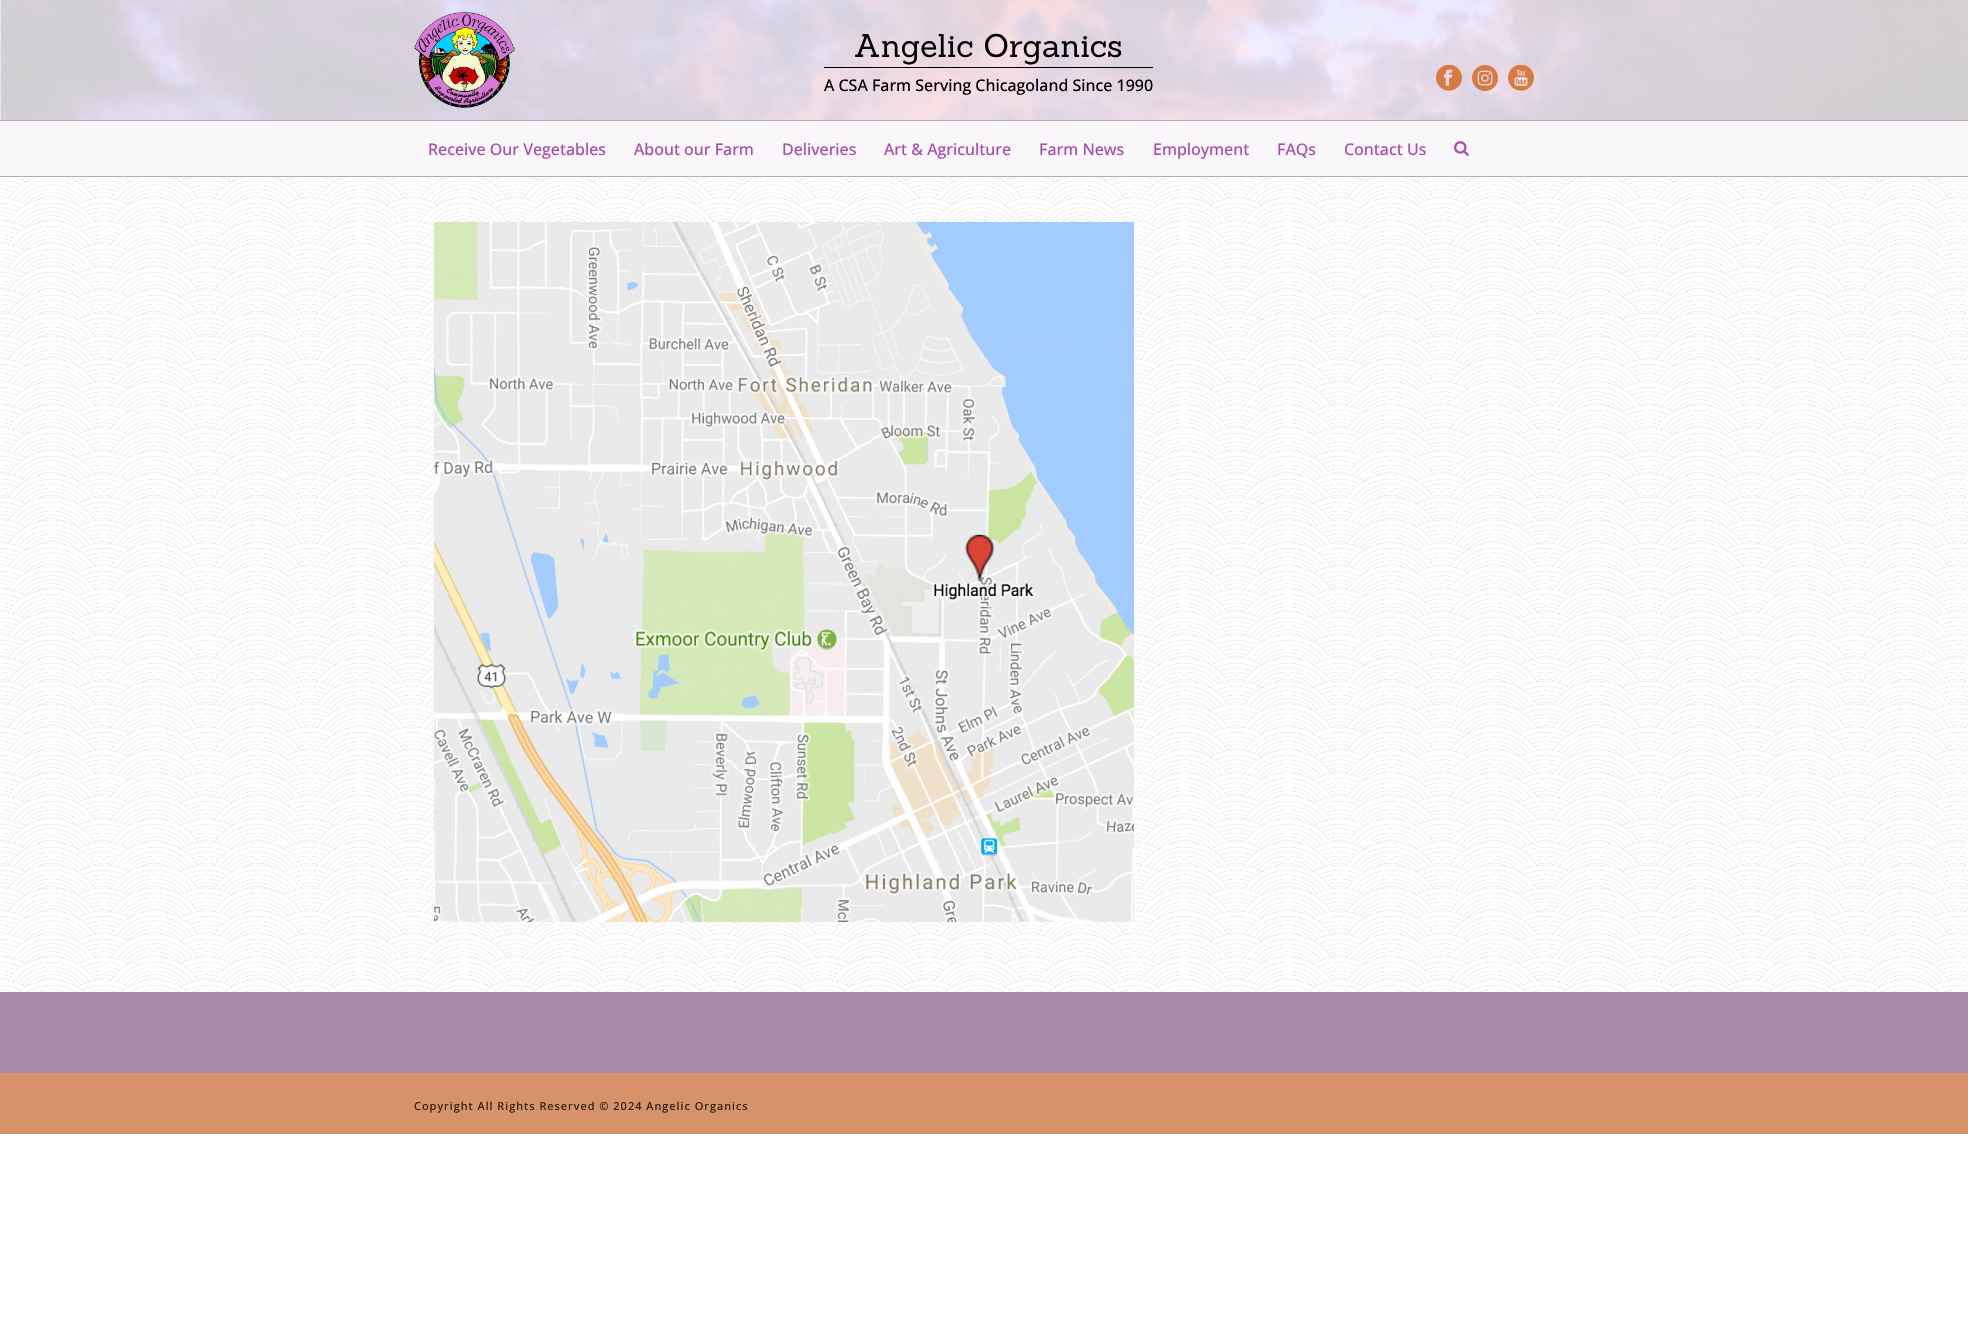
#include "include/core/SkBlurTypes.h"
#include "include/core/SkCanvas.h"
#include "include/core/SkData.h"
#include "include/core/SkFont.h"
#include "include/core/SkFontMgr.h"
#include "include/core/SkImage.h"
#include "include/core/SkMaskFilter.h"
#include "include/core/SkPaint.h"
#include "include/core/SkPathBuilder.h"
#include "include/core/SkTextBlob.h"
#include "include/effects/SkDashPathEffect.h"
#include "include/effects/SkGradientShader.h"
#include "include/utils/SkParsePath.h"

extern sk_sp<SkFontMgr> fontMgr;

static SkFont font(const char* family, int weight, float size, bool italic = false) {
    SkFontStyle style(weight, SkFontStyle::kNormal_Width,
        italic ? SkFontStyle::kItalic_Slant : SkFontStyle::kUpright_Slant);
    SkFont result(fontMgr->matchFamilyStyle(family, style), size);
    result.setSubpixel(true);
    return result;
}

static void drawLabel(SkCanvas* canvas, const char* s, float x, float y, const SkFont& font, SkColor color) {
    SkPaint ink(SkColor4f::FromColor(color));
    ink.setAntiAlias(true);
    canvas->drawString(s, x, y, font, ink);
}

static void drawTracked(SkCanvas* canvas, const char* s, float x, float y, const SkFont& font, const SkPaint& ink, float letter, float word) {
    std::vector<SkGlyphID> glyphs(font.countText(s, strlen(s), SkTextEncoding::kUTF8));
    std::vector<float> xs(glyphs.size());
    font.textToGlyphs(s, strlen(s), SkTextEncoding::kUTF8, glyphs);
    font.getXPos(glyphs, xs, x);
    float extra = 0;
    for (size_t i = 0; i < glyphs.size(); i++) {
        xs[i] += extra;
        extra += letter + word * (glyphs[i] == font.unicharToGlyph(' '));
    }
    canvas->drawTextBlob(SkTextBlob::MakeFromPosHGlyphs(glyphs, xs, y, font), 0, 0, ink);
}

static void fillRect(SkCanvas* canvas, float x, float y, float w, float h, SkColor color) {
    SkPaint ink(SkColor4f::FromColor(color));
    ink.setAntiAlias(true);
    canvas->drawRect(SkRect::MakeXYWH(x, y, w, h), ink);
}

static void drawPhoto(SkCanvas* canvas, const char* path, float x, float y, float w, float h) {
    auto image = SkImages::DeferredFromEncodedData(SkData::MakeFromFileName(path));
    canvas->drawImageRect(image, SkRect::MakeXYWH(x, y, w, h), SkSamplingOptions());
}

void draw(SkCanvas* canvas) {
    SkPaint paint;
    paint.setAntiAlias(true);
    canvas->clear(0xFFFFFFFF);
    fillRect(canvas, 0, 176, 1968, 1, 0xFFBFA6BF);
    drawPhoto(canvas, "assets/img1.png", 0, 0, 1968, 120);
    drawPhoto(canvas, "assets/img2.png", 414, 12, 101, 96);
    fillRect(canvas, 824, 67, 329, 1, 0xFF000000);
    SkFont font1 = font("Sanchez", 400, 32);
    drawLabel(canvas, "Angelic Organics", 854, 57, font1, 0xFF000000);
    SkFont font2 = font("Open Sans", 500, 16);
    drawLabel(canvas, "A CSA Farm Serving Chicagoland Since 1990", 824, 91, font2, 0xFF000000);
    drawPhoto(canvas, "assets/img3.png", 1436, 65, 26, 26);
    drawPhoto(canvas, "assets/img4.png", 1472, 65, 26, 26);
    drawPhoto(canvas, "assets/img5.png", 1508, 65, 26, 26);
    fillRect(canvas, 0, 121, 1968, 55, 0xFFF9F7F9);
    fillRect(canvas, 0, 120, 1968, 1, 0xFFBFA6BF);
    drawLabel(canvas, "Receive Our Vegetables", 428, 155, font2, 0xFFAB4CA9);
    drawLabel(canvas, "About our Farm", 634, 155, font2, 0xFFAB4CA9);
    drawLabel(canvas, "Deliveries", 782, 155, font2, 0xFFAB4CA9);
    drawLabel(canvas, "Art & Agriculture", 884, 155, font2, 0xFFAB4CA9);
    drawLabel(canvas, "Farm News", 1039, 155, font2, 0xFFAB4CA9);
    drawLabel(canvas, "Employment", 1153, 155, font2, 0xFFAB4CA9);
    drawLabel(canvas, "FAQs", 1277, 155, font2, 0xFFAB4CA9);
    drawLabel(canvas, "Contact Us", 1344, 155, font2, 0xFFAB4CA9);
    drawPhoto(canvas, "assets/img6.png", 1454, 141, 15, 15);
    drawPhoto(canvas, "assets/img7.png", 0, 177, 1968, 815);
    drawPhoto(canvas, "assets/img8.png", 434, 222, 700, 700);
    fillRect(canvas, 0, 992, 1968, 81, 0xFFAA88AA);
    fillRect(canvas, 0, 1073, 1968, 61, 0xFFD69268);
    SkFont font3 = font("Open Sans", 500, 11);
    paint.setColor(0xFF2B1D15);
    drawTracked(canvas, "Copyright All Rights Reserved © 2024 Angelic Organics", 414, 1110, font3, paint, 1, 0);
}
